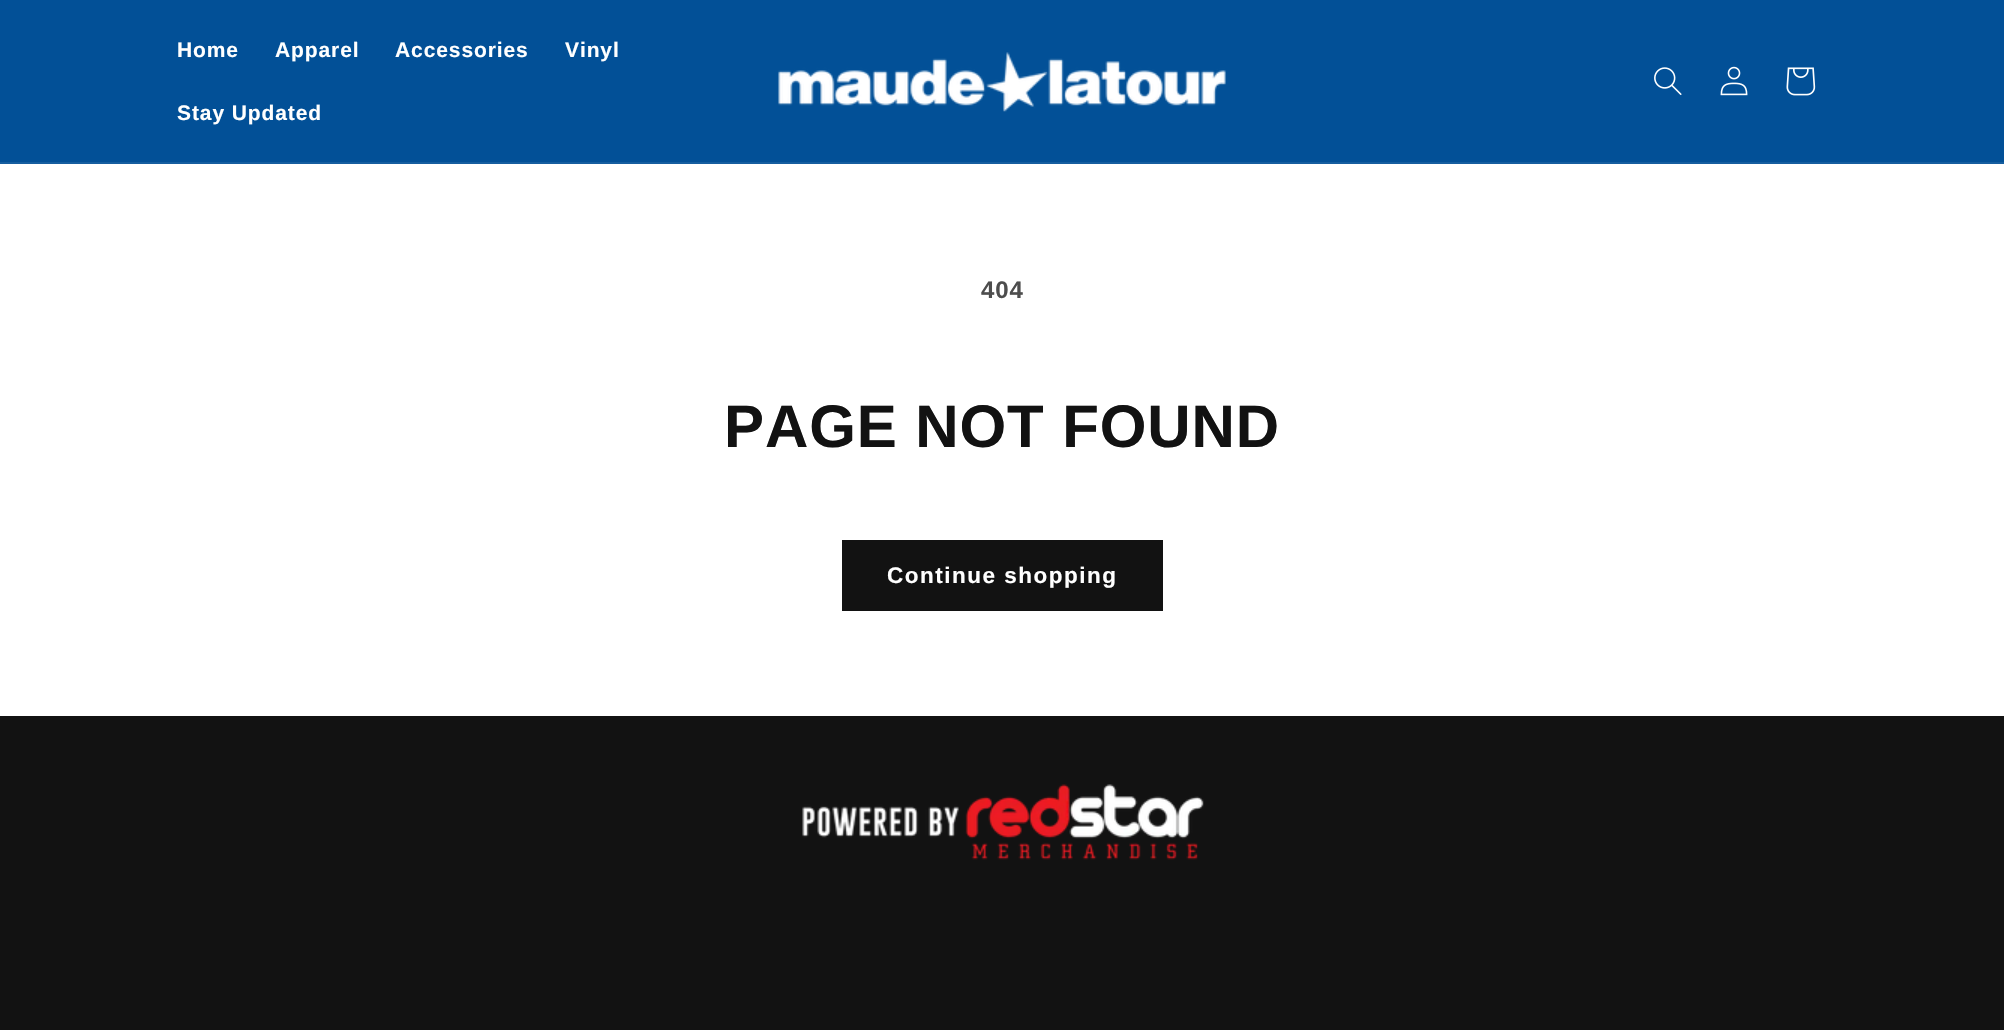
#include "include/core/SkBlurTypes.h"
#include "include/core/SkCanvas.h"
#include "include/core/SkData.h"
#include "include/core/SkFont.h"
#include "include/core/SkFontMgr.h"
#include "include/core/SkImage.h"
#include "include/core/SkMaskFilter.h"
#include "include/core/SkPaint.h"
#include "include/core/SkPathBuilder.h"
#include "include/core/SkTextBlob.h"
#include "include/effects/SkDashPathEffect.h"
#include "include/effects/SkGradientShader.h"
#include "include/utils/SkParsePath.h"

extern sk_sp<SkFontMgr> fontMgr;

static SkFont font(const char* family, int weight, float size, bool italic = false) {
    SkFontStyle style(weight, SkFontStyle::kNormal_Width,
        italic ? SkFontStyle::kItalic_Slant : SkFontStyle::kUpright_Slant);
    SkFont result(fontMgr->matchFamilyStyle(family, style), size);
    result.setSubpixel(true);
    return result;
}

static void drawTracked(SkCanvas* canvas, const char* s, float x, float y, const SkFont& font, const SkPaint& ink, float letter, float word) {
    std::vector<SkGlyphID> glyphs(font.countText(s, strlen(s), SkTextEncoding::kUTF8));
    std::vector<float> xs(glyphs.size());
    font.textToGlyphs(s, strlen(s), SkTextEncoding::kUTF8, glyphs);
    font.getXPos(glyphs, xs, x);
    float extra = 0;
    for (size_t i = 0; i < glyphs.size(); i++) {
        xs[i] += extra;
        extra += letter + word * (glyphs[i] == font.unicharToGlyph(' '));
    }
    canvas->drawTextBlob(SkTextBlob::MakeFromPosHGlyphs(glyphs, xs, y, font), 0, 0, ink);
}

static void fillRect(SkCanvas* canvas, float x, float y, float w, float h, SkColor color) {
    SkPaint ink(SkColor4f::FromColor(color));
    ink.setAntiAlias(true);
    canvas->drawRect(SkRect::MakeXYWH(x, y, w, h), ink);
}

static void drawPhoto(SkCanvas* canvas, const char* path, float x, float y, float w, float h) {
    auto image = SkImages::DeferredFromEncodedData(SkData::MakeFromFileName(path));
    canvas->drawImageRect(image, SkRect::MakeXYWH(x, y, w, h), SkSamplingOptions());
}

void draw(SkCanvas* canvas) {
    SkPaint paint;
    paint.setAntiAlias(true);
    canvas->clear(0xFFFFFFFF);
    fillRect(canvas, 0, 0, 2004, 162, 0xFF025097);
    fillRect(canvas, 0, 162, 2004, 2, 0xFF165E9F);
    SkFont font1 = font("Liberation Sans", 700, 21);
    paint.setColor(0xFFFFFFFF);
    drawTracked(canvas, "Home", 177, 57, font1, paint, 0.9f, 0);
    drawTracked(canvas, "Apparel", 275, 57, font1, paint, 0.9f, 0);
    drawTracked(canvas, "Accessories", 395, 57, font1, paint, 0.9f, 0);
    drawTracked(canvas, "Vinyl", 565, 57, font1, paint, 0.9f, 0);
    drawTracked(canvas, "Stay Updated", 177, 120, font1, paint, 0.9f, 0);
    drawPhoto(canvas, "assets/img1.png", 778, 52, 448, 60);
    drawPhoto(canvas, "assets/img2.png", 1654, 67, 28, 28);
    drawPhoto(canvas, "assets/img3.png", 1720, 66, 28, 30);
    drawPhoto(canvas, "assets/img4.png", 1786, 67, 30, 29);
    SkFont font2 = font("Liberation Sans", 700, 24);
    paint.setColor(0xFF4D4D4D);
    drawTracked(canvas, "404", 981, 298, font2, paint, 0.9f, 0);
    SkFont font3 = font("Liberation Sans", 700, 60);
    paint.setColor(0xFF121212);
    drawTracked(canvas, "PAGE NOT FOUND", 724, 447, font3, paint, 0.9f, 0);
    fillRect(canvas, 842, 540, 321, 71, 0xFF121212);
    SkFont font4 = font("Liberation Sans", 700, 22.5f);
    paint.setColor(0xFFFFFFFF);
    drawTracked(canvas, "Continue shopping", 887, 583, font4, paint, 1.5f, 0);
    fillRect(canvas, 0, 716, 2004, 314, 0xFF121212);
    drawPhoto(canvas, "assets/img5.png", 802, 784, 402, 76);
}
